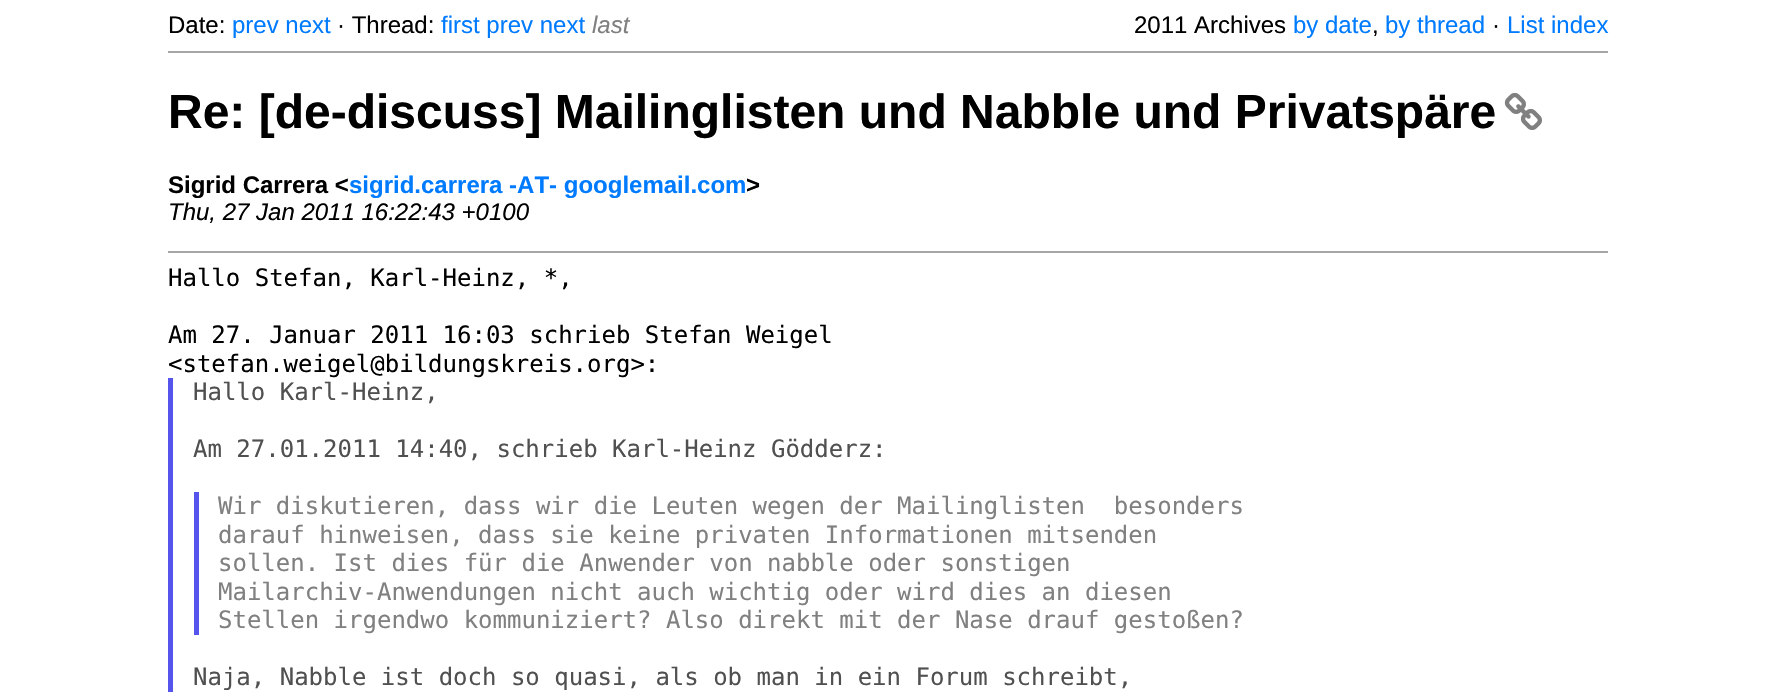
#include "include/core/SkBlurTypes.h"
#include "include/core/SkCanvas.h"
#include "include/core/SkData.h"
#include "include/core/SkFont.h"
#include "include/core/SkFontMgr.h"
#include "include/core/SkImage.h"
#include "include/core/SkMaskFilter.h"
#include "include/core/SkPaint.h"
#include "include/core/SkPathBuilder.h"
#include "include/core/SkTextBlob.h"
#include "include/effects/SkDashPathEffect.h"
#include "include/effects/SkGradientShader.h"
#include "include/utils/SkParsePath.h"

extern sk_sp<SkFontMgr> fontMgr;

static SkFont font(const char* family, int weight, float size, bool italic = false) {
    SkFontStyle style(weight, SkFontStyle::kNormal_Width,
        italic ? SkFontStyle::kItalic_Slant : SkFontStyle::kUpright_Slant);
    SkFont result(fontMgr->matchFamilyStyle(family, style), size);
    result.setSubpixel(true);
    return result;
}

static void drawLabel(SkCanvas* canvas, const char* s, float x, float y, const SkFont& font, SkColor color) {
    SkPaint ink(SkColor4f::FromColor(color));
    ink.setAntiAlias(true);
    canvas->drawString(s, x, y, font, ink);
}

static void fillRect(SkCanvas* canvas, float x, float y, float w, float h, SkColor color) {
    SkPaint ink(SkColor4f::FromColor(color));
    ink.setAntiAlias(true);
    canvas->drawRect(SkRect::MakeXYWH(x, y, w, h), ink);
}

static void drawPhoto(SkCanvas* canvas, const char* path, float x, float y, float w, float h) {
    auto image = SkImages::DeferredFromEncodedData(SkData::MakeFromFileName(path));
    canvas->drawImageRect(image, SkRect::MakeXYWH(x, y, w, h), SkSamplingOptions());
}

void draw(SkCanvas* canvas) {
    SkPaint paint;
    paint.setAntiAlias(true);
    canvas->clear(0xFFFFFFFF);
    SkFont font1 = font("Liberation Sans", 400, 24);
    drawLabel(canvas, "Date:", 168, 33, font1, 0xFF000000);
    drawLabel(canvas, "prev next", 232, 33, font1, 0xFF007BFF);
    drawLabel(canvas, "· Thread:", 337, 33, font1, 0xFF000000);
    drawLabel(canvas, "first prev next", 441, 33, font1, 0xFF007BFF);
    SkFont font2 = font("Liberation Sans", 400, 24, true);
    drawLabel(canvas, "last", 592, 33, font2, 0xFF808080);
    drawLabel(canvas, "2011 Archives", 1134, 33, font1, 0xFF000000);
    drawLabel(canvas, "by date", 1293, 33, font1, 0xFF007BFF);
    drawLabel(canvas, "by thread", 1385, 33, font1, 0xFF007BFF);
    drawLabel(canvas, "·", 1492, 33, font1, 0xFF000000);
    drawLabel(canvas, "List index", 1507, 33, font1, 0xFF007BFF);
    drawLabel(canvas, ",", 1372, 33, font1, 0xFF000000);
    fillRect(canvas, 168, 51, 1440, 2, 0xFFA6A6A6);
    SkFont font3 = font("Liberation Sans", 700, 48);
    drawLabel(canvas, "Re: [de-discuss] Mailinglisten und Nabble und Privatspäre", 168, 128, font3, 0xFF000000);
    drawPhoto(canvas, "assets/img1.png", 1504, 92, 38, 38);
    SkFont font4 = font("Liberation Sans", 700, 24);
    drawLabel(canvas, "Sigrid Carrera <", 168, 193, font4, 0xFF000000);
    drawLabel(canvas, "sigrid.carrera -AT- googlemail.com", 349, 193, font4, 0xFF007BFF);
    drawLabel(canvas, ">", 746, 193, font4, 0xFF000000);
    drawLabel(canvas, "Thu, 27 Jan 2011 16:22:43 +0100", 168, 220, font2, 0xFF000000);
    fillRect(canvas, 168, 251, 1440, 2, 0xFFA6A6A6);
    SkFont font5 = font("DejaVu Sans Mono", 400, 24);
    drawLabel(canvas, "Hallo Stefan, Karl-Heinz, *,", 168, 286, font5, 0xFF000000);
    drawLabel(canvas, "Am 27. Januar 2011 16:03 schrieb Stefan Weigel", 168, 343, font5, 0xFF000000);
    drawLabel(canvas, "<stefan.weigel@bildungskreis.org>:", 168, 372, font5, 0xFF000000);
    fillRect(canvas, 168, 378, 5, 314, 0xFF5555EE);
    drawLabel(canvas, "Hallo Karl-Heinz,", 193, 400, font5, 0xFF505050);
    drawLabel(canvas, "Am 27.01.2011 14:40, schrieb Karl-Heinz Gödderz:", 193, 457, font5, 0xFF505050);
    fillRect(canvas, 194, 492, 5, 143, 0xFF5555EE);
    drawLabel(canvas, "Wir diskutieren, dass wir die Leuten wegen der Mailinglisten  besonders", 218, 514, font5, 0xFF808080);
    drawLabel(canvas, "darauf hinweisen, dass sie keine privaten Informationen mitsenden", 218, 543, font5, 0xFF808080);
    drawLabel(canvas, "sollen. Ist dies für die Anwender von nabble oder sonstigen", 218, 571, font5, 0xFF808080);
    drawLabel(canvas, "Mailarchiv-Anwendungen nicht auch wichtig oder wird dies an diesen", 218, 600, font5, 0xFF808080);
    drawLabel(canvas, "Stellen irgendwo kommuniziert? Also direkt mit der Nase drauf gestoßen?", 218, 628, font5, 0xFF808080);
    drawLabel(canvas, "Naja, Nabble ist doch so quasi, als ob man in ein Forum schreibt,", 193, 685, font5, 0xFF505050);
}
